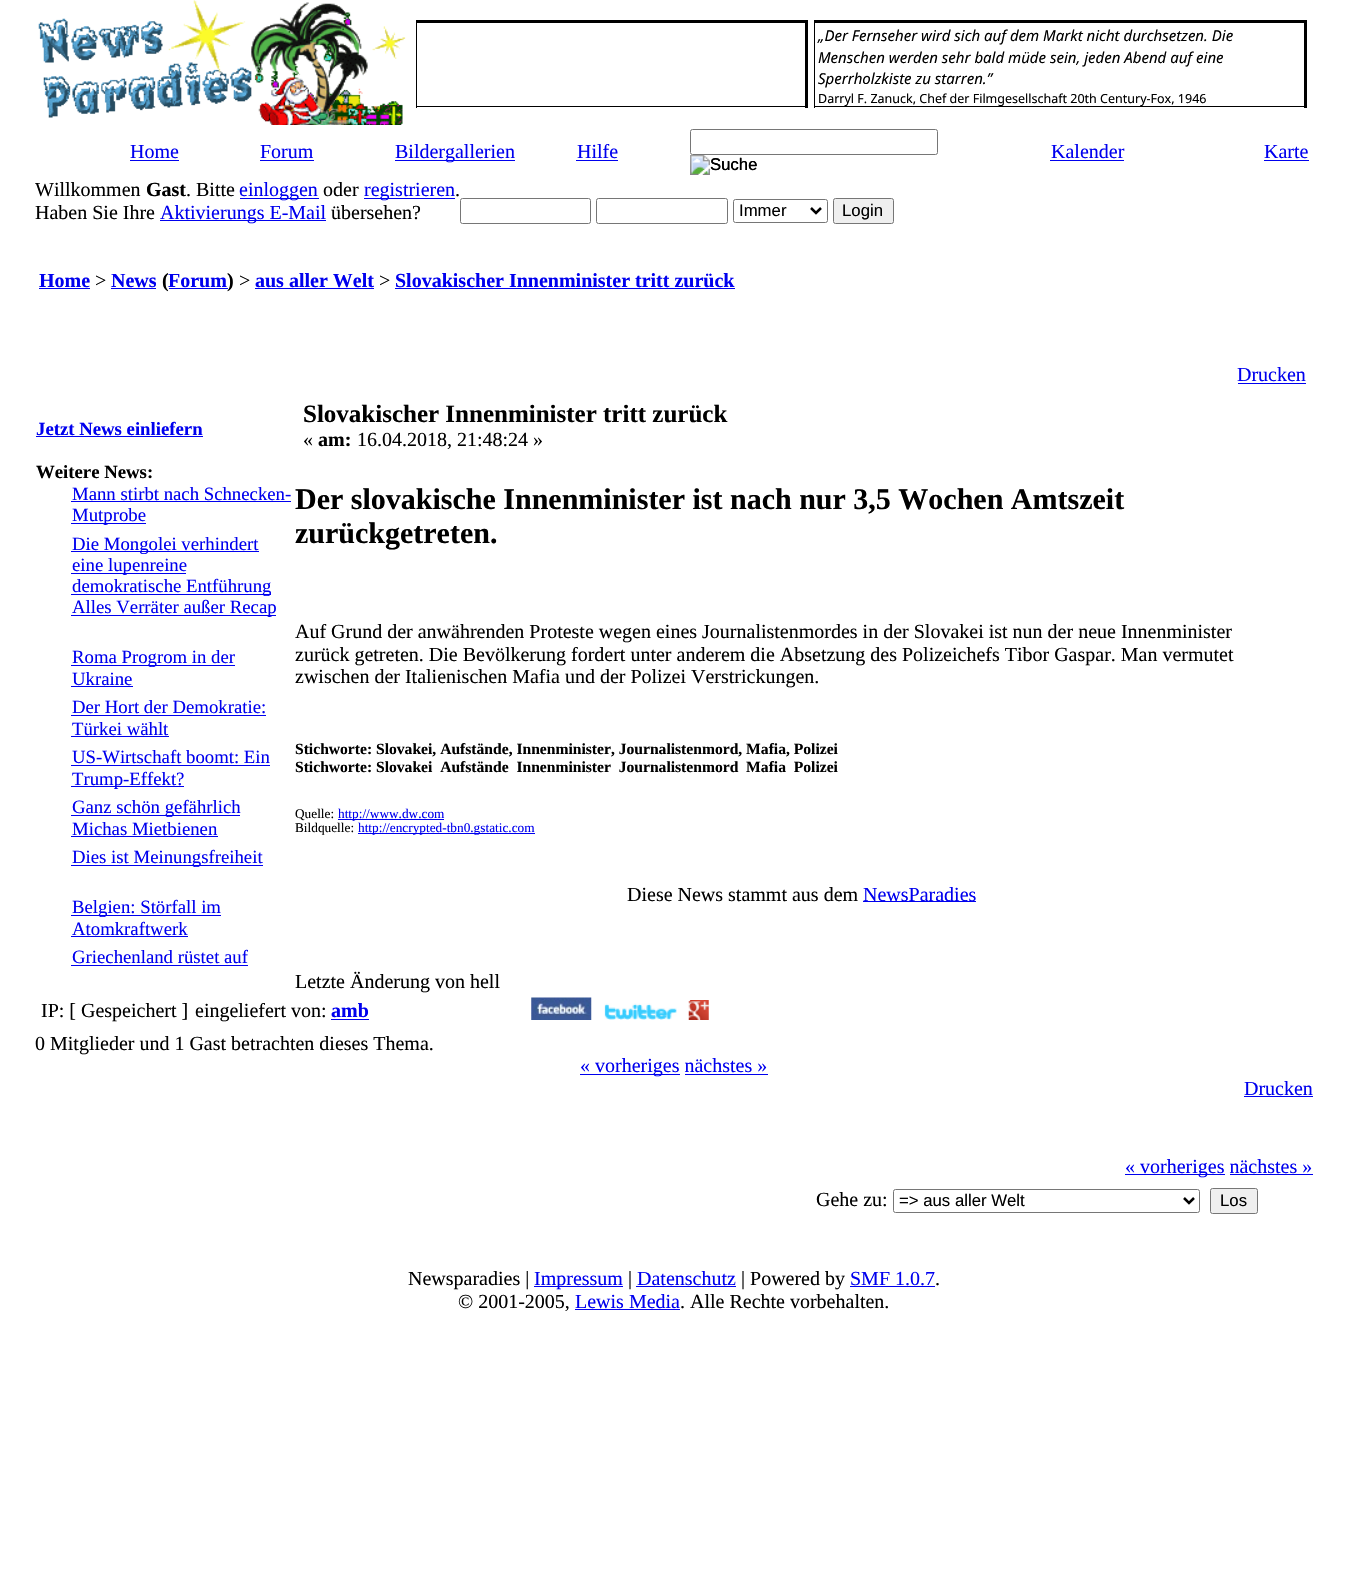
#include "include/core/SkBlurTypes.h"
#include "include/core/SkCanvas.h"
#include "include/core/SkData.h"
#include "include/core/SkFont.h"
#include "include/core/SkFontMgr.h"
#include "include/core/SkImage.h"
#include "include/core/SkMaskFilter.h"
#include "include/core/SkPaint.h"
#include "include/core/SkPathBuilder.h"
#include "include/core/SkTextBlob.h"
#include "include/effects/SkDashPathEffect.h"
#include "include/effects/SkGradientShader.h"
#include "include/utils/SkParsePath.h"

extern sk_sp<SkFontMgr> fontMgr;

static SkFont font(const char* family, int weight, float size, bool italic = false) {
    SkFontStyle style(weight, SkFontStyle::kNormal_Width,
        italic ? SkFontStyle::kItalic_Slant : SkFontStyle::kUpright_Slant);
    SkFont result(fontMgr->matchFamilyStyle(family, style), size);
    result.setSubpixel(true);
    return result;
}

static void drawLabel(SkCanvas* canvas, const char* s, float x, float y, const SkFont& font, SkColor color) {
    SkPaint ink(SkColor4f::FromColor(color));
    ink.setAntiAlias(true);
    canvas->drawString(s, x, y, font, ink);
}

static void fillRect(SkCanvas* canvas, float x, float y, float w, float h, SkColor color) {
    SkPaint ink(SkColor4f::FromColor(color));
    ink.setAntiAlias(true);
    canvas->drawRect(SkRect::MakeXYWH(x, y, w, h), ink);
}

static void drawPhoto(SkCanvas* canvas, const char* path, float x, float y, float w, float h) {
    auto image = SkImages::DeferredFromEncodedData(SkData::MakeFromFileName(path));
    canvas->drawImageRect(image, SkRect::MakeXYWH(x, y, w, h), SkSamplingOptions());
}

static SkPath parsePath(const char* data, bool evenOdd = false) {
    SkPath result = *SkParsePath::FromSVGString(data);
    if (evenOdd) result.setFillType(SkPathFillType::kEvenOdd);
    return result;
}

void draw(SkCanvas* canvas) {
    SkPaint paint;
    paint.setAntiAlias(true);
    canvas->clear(0xFFFFFFFF);
    drawPhoto(canvas, "assets/img1.png", 38, 0, 368, 125);
    fillRect(canvas, 416, 20, 392, 3, 0xFF000000);
    fillRect(canvas, 805, 20, 3, 88, 0xFF000000);
    fillRect(canvas, 416, 106, 392, 1, 0xFF000000);
    fillRect(canvas, 416, 20, 1, 88, 0xFF000000);
    fillRect(canvas, 814, 20, 492, 3, 0xFF000000);
    fillRect(canvas, 1304, 20, 3, 88, 0xFF000000);
    fillRect(canvas, 814, 106, 492, 1, 0xFF000000);
    fillRect(canvas, 814, 20, 1, 88, 0xFF000000);
    SkFont font1 = font("Noto Sans", 400, 15, true);
    drawLabel(canvas, "„Der Fernseher wird sich auf dem Markt nicht durchsetzen. Die", 818, 41, font1, 0xFF000000);
    drawLabel(canvas, "Menschen werden sehr bald müde sein, jeden Abend auf eine", 818, 63, font1, 0xFF000000);
    drawLabel(canvas, "Sperrholzkiste zu starren.”", 818, 84, font1, 0xFF000000);
    SkFont font2 = font("Noto Sans", 400, 12.5f);
    drawLabel(canvas, "Darryl F. Zanuck, Chef der Filmgesellschaft 20th Century-Fox, 1946", 818, 103, font2, 0xFF000000);
    SkFont font3 = font("Liberation Serif", 400, 20);
    drawLabel(canvas, "Home", 130, 158, font3, 0xFF0000EE);
    fillRect(canvas, 130, 160, 49, 1, 0xFF0000EE);
    drawLabel(canvas, "Forum", 260, 158, font3, 0xFF0000EE);
    fillRect(canvas, 260, 160, 54, 1, 0xFF0000EE);
    fillRect(canvas, 395, 160, 120, 1, 0xFF0000EE);
    drawLabel(canvas, "Bildergallerien", 395, 158, font3, 0xFF0000EE);
    drawLabel(canvas, "Hilfe", 577, 158, font3, 0xFF0000EE);
    fillRect(canvas, 576, 160, 42, 1, 0xFF0000EE);
    drawLabel(canvas, "Kalender", 1051, 158, font3, 0xFF0000EE);
    fillRect(canvas, 1050, 160, 74, 1, 0xFF0000EE);
    drawLabel(canvas, "Karte", 1264, 158, font3, 0xFF0000EE);
    fillRect(canvas, 1264, 160, 45, 1, 0xFF0000EE);
    paint.setStroke(true);
    paint.setStrokeWidth(1);
    paint.setColor(0xFF767676);
    canvas->drawRoundRect(SkRect::MakeXYWH(690.5f, 129.5f, 247, 25), 2, 2, paint);
    drawPhoto(canvas, "assets/img2.png", 690, 155, 67, 20);
    SkFont font4 = font("Liberation Sans", 400, 16.75f);
    drawLabel(canvas, "Suche", 710, 170, font4, 0xFF000000);
    drawLabel(canvas, "Willkommen", 35, 196, font3, 0xFF000000);
    SkFont font5 = font("Liberation Serif", 700, 20);
    drawLabel(canvas, "Gast", 146, 196, font5, 0xFF000000);
    drawLabel(canvas, ". Bitte", 186, 196, font3, 0xFF000000);
    fillRect(canvas, 240, 198, 79, 1, 0xFF0000EE);
    drawLabel(canvas, "einloggen", 239, 196, font3, 0xFF0000EE);
    drawLabel(canvas, "oder", 323, 196, font3, 0xFF000000);
    fillRect(canvas, 364, 198, 91, 1, 0xFF0000EE);
    drawLabel(canvas, "registrieren", 364, 196, font3, 0xFF0000EE);
    drawLabel(canvas, ".", 455, 196, font3, 0xFF000000);
    drawLabel(canvas, "Haben Sie Ihre", 35, 219, font3, 0xFF000000);
    fillRect(canvas, 160, 220, 166, 1, 0xFF0000EE);
    drawLabel(canvas, "Aktivierungs E-Mail", 160, 219, font3, 0xFF0000EE);
    drawLabel(canvas, "übersehen?", 331, 219, font3, 0xFF000000);
    canvas->drawRoundRect(SkRect::MakeXYWH(460.5f, 198.5f, 130, 25), 2, 2, paint);
    canvas->drawRoundRect(SkRect::MakeXYWH(596.5f, 198.5f, 131, 25), 2, 2, paint);
    canvas->drawRoundRect(SkRect::MakeXYWH(733.5f, 199.5f, 94, 23), 2, 2, paint);
    paint.setStrokeWidth(2.5f);
    paint.setColor(0xFF000000);
    canvas->drawPath(parsePath("M811 208L816 213L821 208"), paint);
    drawLabel(canvas, "Immer", 739, 216, font4, 0xFF000000);
    paint.setStroke(false);
    paint.setColor(0xFFEFEFEF);
    canvas->drawRoundRect(SkRect::MakeXYWH(833.5f, 198.5f, 60, 25), 2, 2, paint);
    paint.setStroke(true);
    paint.setStrokeWidth(1);
    paint.setColor(0xFF767676);
    canvas->drawRoundRect(SkRect::MakeXYWH(833.5f, 198.5f, 60, 25), 2, 2, paint);
    drawLabel(canvas, "Login", 842, 216, font4, 0xFF000000);
    drawLabel(canvas, "Home", 39, 287, font5, 0xFF0000EE);
    fillRect(canvas, 39, 288, 51, 1, 0xFF0000EE);
    drawLabel(canvas, ">", 95, 287, font3, 0xFF000000);
    drawLabel(canvas, "News", 111, 287, font5, 0xFF0000EE);
    fillRect(canvas, 111, 288, 45, 1, 0xFF0000EE);
    drawLabel(canvas, "(", 162, 287, font5, 0xFF000000);
    drawLabel(canvas, "Forum", 168, 287, font5, 0xFF0000EE);
    fillRect(canvas, 169, 288, 59, 1, 0xFF0000EE);
    drawLabel(canvas, ")", 227, 287, font5, 0xFF000000);
    drawLabel(canvas, ">", 239, 287, font3, 0xFF000000);
    drawLabel(canvas, "aus aller Welt", 255, 287, font5, 0xFF0000EE);
    fillRect(canvas, 255, 288, 119, 1, 0xFF0000EE);
    drawLabel(canvas, ">", 379, 287, font3, 0xFF000000);
    drawLabel(canvas, "Slovakischer Innenminister tritt zurück", 395, 287, font5, 0xFF0000EE);
    fillRect(canvas, 395, 288, 340, 1, 0xFF0000EE);
    drawLabel(canvas, "Drucken", 1237, 381, font3, 0xFF0000EE);
    fillRect(canvas, 1238, 383, 68, 1, 0xFF0000EE);
    SkFont font6 = font("Liberation Serif", 700, 18.75f);
    drawLabel(canvas, "Jetzt News einliefern", 36, 435, font6, 0xFF0000EE);
    fillRect(canvas, 36, 436, 167, 1, 0xFF0000EE);
    drawLabel(canvas, "Weitere News:", 36, 478, font6, 0xFF000000);
    SkFont font7 = font("Liberation Serif", 400, 18.75f);
    drawLabel(canvas, "Mann stirbt nach Schnecken-", 72, 500, font7, 0xFF0000EE);
    fillRect(canvas, 71, 501, 220, 1, 0xFF0000EE);
    fillRect(canvas, 71, 523, 75, 1, 0xFF0000EE);
    drawLabel(canvas, "Mutprobe", 72, 521, font7, 0xFF0000EE);
    fillRect(canvas, 71, 551, 188, 1, 0xFF0000EE);
    drawLabel(canvas, "Die Mongolei verhindert", 72, 550, font7, 0xFF0000EE);
    fillRect(canvas, 71, 573, 115, 1, 0xFF0000EE);
    drawLabel(canvas, "eine lupenreine", 72, 571, font7, 0xFF0000EE);
    fillRect(canvas, 71, 594, 200, 1, 0xFF0000EE);
    drawLabel(canvas, "demokratische Entführung", 72, 592, font7, 0xFF0000EE);
    fillRect(canvas, 71, 615, 205, 1, 0xFF0000EE);
    drawLabel(canvas, "Alles Verräter außer Recap", 72, 613, font7, 0xFF0000EE);
    fillRect(canvas, 71, 665, 164, 1, 0xFF0000EE);
    drawLabel(canvas, "Roma Progrom in der", 72, 663, font7, 0xFF0000EE);
    drawLabel(canvas, "Ukraine", 72, 685, font7, 0xFF0000EE);
    fillRect(canvas, 71, 686, 62, 1, 0xFF0000EE);
    drawLabel(canvas, "Der Hort der Demokratie:", 72, 713, font7, 0xFF0000EE);
    fillRect(canvas, 71, 715, 195, 1, 0xFF0000EE);
    drawLabel(canvas, "Türkei wählt", 72, 735, font7, 0xFF0000EE);
    fillRect(canvas, 71, 736, 98, 1, 0xFF0000EE);
    drawLabel(canvas, "US-Wirtschaft boomt: Ein", 72, 763, font7, 0xFF0000EE);
    fillRect(canvas, 71, 765, 199, 1, 0xFF0000EE);
    fillRect(canvas, 71, 786, 113, 1, 0xFF0000EE);
    drawLabel(canvas, "Trump-Effekt?", 72, 785, font7, 0xFF0000EE);
    fillRect(canvas, 71, 815, 169, 1, 0xFF0000EE);
    drawLabel(canvas, "Ganz schön gefährlich", 72, 813, font7, 0xFF0000EE);
    drawLabel(canvas, "Michas Mietbienen", 72, 835, font7, 0xFF0000EE);
    fillRect(canvas, 71, 836, 147, 1, 0xFF0000EE);
    fillRect(canvas, 71, 865, 192, 1, 0xFF0000EE);
    drawLabel(canvas, "Dies ist Meinungsfreiheit", 72, 863, font7, 0xFF0000EE);
    fillRect(canvas, 71, 915, 150, 1, 0xFF0000EE);
    drawLabel(canvas, "Belgien: Störfall im", 72, 913, font7, 0xFF0000EE);
    drawLabel(canvas, "Atomkraftwerk", 72, 935, font7, 0xFF0000EE);
    fillRect(canvas, 71, 936, 117, 1, 0xFF0000EE);
    drawLabel(canvas, "Griechenland rüstet auf", 72, 963, font7, 0xFF0000EE);
    fillRect(canvas, 71, 965, 177, 1, 0xFF0000EE);
    SkFont font8 = font("Liberation Serif", 700, 25);
    drawLabel(canvas, "Slovakischer Innenminister tritt zurück", 303, 422, font8, 0xFF000000);
    drawLabel(canvas, "«", 303, 446, font3, 0xFF000000);
    drawLabel(canvas, "am:", 318, 446, font5, 0xFF000000);
    drawLabel(canvas, "16.04.2018, 21:48:24 »", 357, 446, font3, 0xFF000000);
    SkFont font9 = font("Liberation Serif", 700, 30);
    drawLabel(canvas, "Der slovakische Innenminister ist nach nur 3,5 Wochen Amtszeit", 295, 509, font9, 0xFF000000);
    drawLabel(canvas, "zurückgetreten.", 295, 543, font9, 0xFF000000);
    drawLabel(canvas, "Auf Grund der anwährenden Proteste wegen eines Journalistenmordes in der Slovakei ist nun der neue Innenminister", 295, 638, font3, 0xFF000000);
    drawLabel(canvas, "zurück getreten. Die Bevölkerung fordert unter anderem die Absetzung des Polizeichefs Tibor Gaspar. Man vermutet", 295, 661, font3, 0xFF000000);
    drawLabel(canvas, "zwischen der Italienischen Mafia und der Polizei Verstrickungen.", 295, 683, font3, 0xFF000000);
    SkFont font10 = font("Liberation Serif", 700, 15.6f);
    drawLabel(canvas, "Stichworte: Slovakei, Aufstände, Innenminister, Journalistenmord, Mafia, Polizei", 295, 754, font10, 0xFF000000);
    drawLabel(canvas, "Stichworte: Slovakei  Aufstände  Innenminister  Journalistenmord  Mafia  Polizei", 295, 772, font10, 0xFF000000);
    SkFont font11 = font("Liberation Serif", 400, 13.3f);
    drawLabel(canvas, "Quelle:", 295, 818, font11, 0xFF000000);
    fillRect(canvas, 338, 819, 106, 1, 0xFF0000EE);
    drawLabel(canvas, "http://www.dw.com", 338, 818, font11, 0xFF0000EE);
    drawLabel(canvas, "Bildquelle:", 295, 832, font11, 0xFF000000);
    fillRect(canvas, 358, 833, 177, 1, 0xFF0000EE);
    drawLabel(canvas, "http://encrypted-tbn0.gstatic.com", 358, 832, font11, 0xFF0000EE);
    drawLabel(canvas, "Diese News stammt aus dem", 627, 901, font3, 0xFF000000);
    fillRect(canvas, 863, 901, 113, 1, 0xFF0000EE);
    drawLabel(canvas, "NewsParadies", 863, 901, font3, 0xFF0000EE);
    drawLabel(canvas, "Letzte Änderung von hell", 295, 988, font3, 0xFF000000);
    drawLabel(canvas, "IP: [ Gespeichert ]", 41, 1017, font3, 0xFF000000);
    drawLabel(canvas, "eingeliefert von:", 195, 1017, font3, 0xFF000000);
    drawLabel(canvas, "amb", 331, 1017, font5, 0xFF0000EE);
    fillRect(canvas, 331, 1019, 38, 1, 0xFF0000EE);
    drawPhoto(canvas, "assets/img3.png", 531, 997, 61, 23);
    drawPhoto(canvas, "assets/img4.png", 604, 1003, 73, 17);
    drawPhoto(canvas, "assets/img5.png", 688, 1000, 21, 20);
    drawLabel(canvas, "0 Mitglieder und 1 Gast betrachten dieses Thema.", 35, 1050, font3, 0xFF000000);
    fillRect(canvas, 580, 1074, 100, 1, 0xFF0000EE);
    drawLabel(canvas, "« vorheriges nächstes »", 580, 1072, font3, 0xFF0000EE);
    fillRect(canvas, 685, 1074, 83, 1, 0xFF0000EE);
    drawLabel(canvas, "Drucken", 1244, 1095, font3, 0xFF0000EE);
    fillRect(canvas, 1244, 1096, 69, 1, 0xFF0000EE);
    fillRect(canvas, 1125, 1174, 100, 1, 0xFF0000EE);
    drawLabel(canvas, "« vorheriges nächstes »", 1125, 1173, font3, 0xFF0000EE);
    fillRect(canvas, 1230, 1174, 83, 1, 0xFF0000EE);
    drawLabel(canvas, "Gehe zu:", 816, 1206, font3, 0xFF000000);
    canvas->drawRoundRect(SkRect::MakeXYWH(893.5f, 1189.5f, 306, 23), 2, 2, paint);
    paint.setStrokeWidth(2.5f);
    paint.setColor(0xFF000000);
    canvas->drawPath(parsePath("M1184 1198L1189 1203L1194 1198"), paint);
    drawLabel(canvas, "=> aus aller Welt", 899, 1206, font4, 0xFF000000);
    paint.setStroke(false);
    paint.setColor(0xFFEFEFEF);
    canvas->drawRoundRect(SkRect::MakeXYWH(1210.5f, 1188.5f, 47, 25), 2, 2, paint);
    paint.setStroke(true);
    paint.setStrokeWidth(1);
    paint.setColor(0xFF767676);
    canvas->drawRoundRect(SkRect::MakeXYWH(1210.5f, 1188.5f, 47, 25), 2, 2, paint);
    drawLabel(canvas, "Los", 1220, 1206, font4, 0xFF000000);
    drawLabel(canvas, "Newsparadies |", 408, 1285, font3, 0xFF000000);
    fillRect(canvas, 534, 1286, 89, 1, 0xFF0000EE);
    drawLabel(canvas, "Impressum", 534, 1285, font3, 0xFF0000EE);
    drawLabel(canvas, "|", 628, 1285, font3, 0xFF000000);
    drawLabel(canvas, "Datenschutz", 637, 1285, font3, 0xFF0000EE);
    fillRect(canvas, 636, 1286, 100, 1, 0xFF0000EE);
    drawLabel(canvas, "| Powered by", 741, 1285, font3, 0xFF000000);
    drawLabel(canvas, "SMF 1.0.7", 850, 1285, font3, 0xFF0000EE);
    fillRect(canvas, 850, 1286, 85, 1, 0xFF0000EE);
    drawLabel(canvas, ".", 935, 1285, font3, 0xFF000000);
    drawLabel(canvas, "© 2001-2005,", 458, 1308, font3, 0xFF000000);
    drawLabel(canvas, "Lewis Media", 575, 1308, font3, 0xFF0000EE);
    fillRect(canvas, 575, 1309, 105, 1, 0xFF0000EE);
    drawLabel(canvas, ". Alle Rechte vorbehalten.", 680, 1308, font3, 0xFF000000);
}
